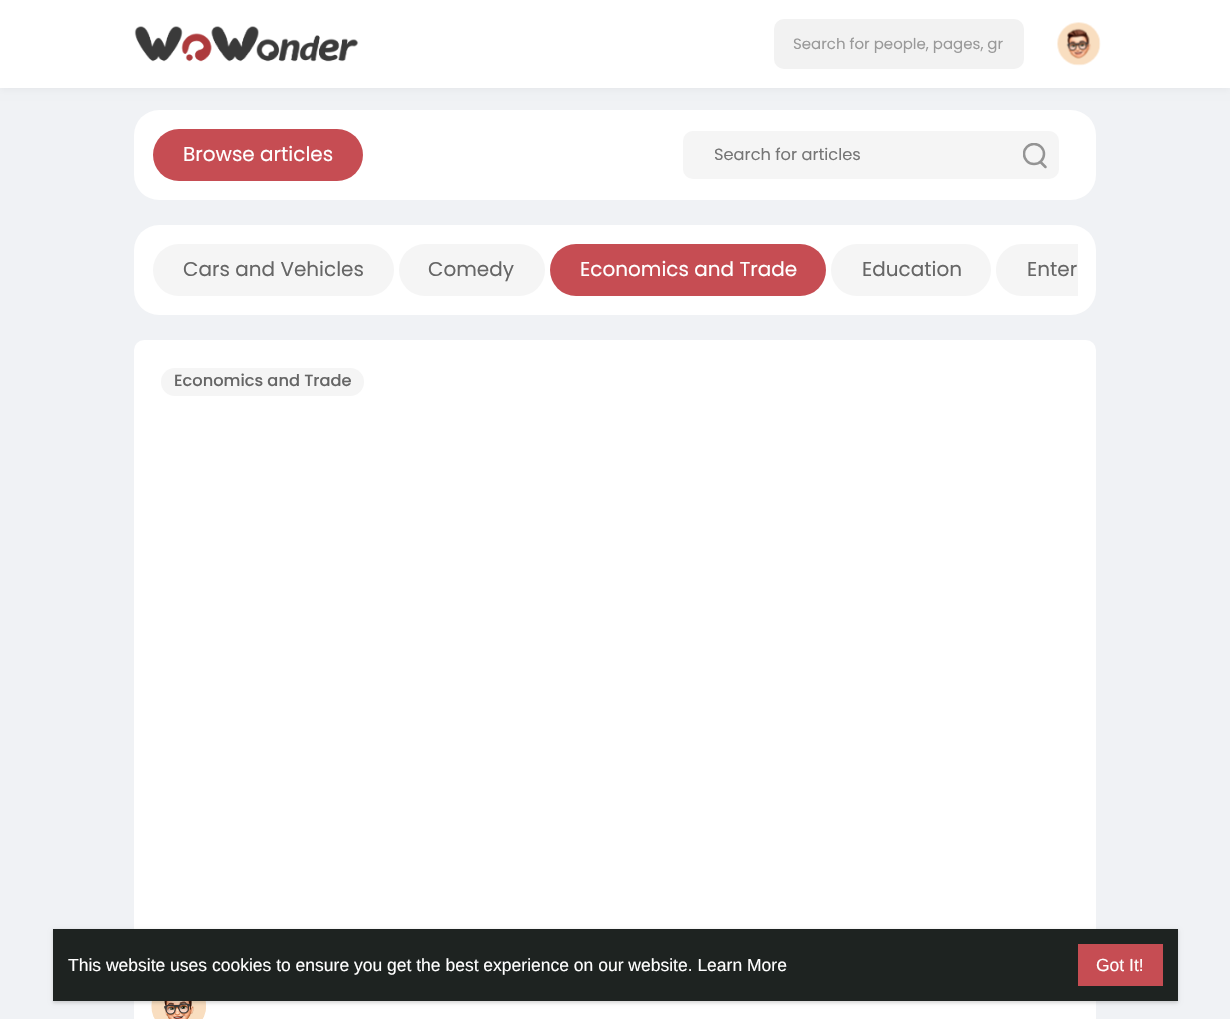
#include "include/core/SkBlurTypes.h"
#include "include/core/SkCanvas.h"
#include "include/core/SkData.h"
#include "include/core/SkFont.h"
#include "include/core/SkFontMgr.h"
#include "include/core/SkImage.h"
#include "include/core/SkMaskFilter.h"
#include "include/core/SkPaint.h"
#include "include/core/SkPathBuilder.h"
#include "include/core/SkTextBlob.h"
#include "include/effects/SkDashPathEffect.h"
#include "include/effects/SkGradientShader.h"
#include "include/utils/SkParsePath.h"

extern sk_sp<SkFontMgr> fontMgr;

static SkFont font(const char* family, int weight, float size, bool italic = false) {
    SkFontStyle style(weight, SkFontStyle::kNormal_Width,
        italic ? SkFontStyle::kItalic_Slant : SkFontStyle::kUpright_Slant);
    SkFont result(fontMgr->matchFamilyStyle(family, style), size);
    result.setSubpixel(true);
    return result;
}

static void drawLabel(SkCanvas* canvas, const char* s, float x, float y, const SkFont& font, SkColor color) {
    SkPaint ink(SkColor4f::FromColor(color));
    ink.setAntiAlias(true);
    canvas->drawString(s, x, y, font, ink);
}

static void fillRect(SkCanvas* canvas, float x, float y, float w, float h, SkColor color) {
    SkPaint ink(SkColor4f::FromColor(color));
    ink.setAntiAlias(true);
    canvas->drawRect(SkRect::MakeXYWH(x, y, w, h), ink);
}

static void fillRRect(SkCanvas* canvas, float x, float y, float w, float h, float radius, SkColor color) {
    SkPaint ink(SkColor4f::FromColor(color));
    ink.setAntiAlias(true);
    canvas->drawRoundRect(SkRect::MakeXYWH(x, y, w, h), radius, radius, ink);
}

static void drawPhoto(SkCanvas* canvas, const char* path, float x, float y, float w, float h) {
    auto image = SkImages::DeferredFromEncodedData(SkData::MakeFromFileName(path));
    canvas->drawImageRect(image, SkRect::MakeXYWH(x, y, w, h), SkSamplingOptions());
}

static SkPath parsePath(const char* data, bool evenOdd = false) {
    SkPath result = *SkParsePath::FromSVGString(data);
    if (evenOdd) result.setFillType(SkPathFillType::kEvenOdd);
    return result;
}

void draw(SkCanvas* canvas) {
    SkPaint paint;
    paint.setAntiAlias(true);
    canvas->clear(0xFFF0F2F5);
    paint.setColor(0x0D000000);
    paint.setMaskFilter(SkMaskFilter::MakeBlur(kNormal_SkBlurStyle, 4));
    canvas->drawRect(SkRect::MakeXYWH(0, 1, 1230, 88), paint);
    paint.setMaskFilter(nullptr);
    fillRect(canvas, 0, 0, 1230, 88, 0xFFFFFFFF);
    drawPhoto(canvas, "assets/img1.png", 134, 26, 225, 36);
    fillRRect(canvas, 774, 19, 250, 50, 10, 0xFFF2F2F2);
    SkFont font1 = font("Poppins", 400, 15);
    drawLabel(canvas, "Search for people, pages, gr", 793, 49, font1, 0xFF999999);
    drawPhoto(canvas, "assets/img2.png", 1057, 22, 44, 44);
    fillRRect(canvas, 134, 110, 962, 90, 25, 0xFFFFFFFF);
    fillRRect(canvas, 153, 129, 210, 52, 26, 0xFFC64D53);
    SkFont font2 = font("Poppins", 400, 20);
    drawLabel(canvas, "Browse articles", 183, 161, font2, 0xFFFFFFFF);
    fillRRect(canvas, 683, 131, 376, 48, 10, 0xFFF5F5F5);
    SkFont font3 = font("Poppins", 400, 16.25f);
    drawLabel(canvas, "Search for articles", 714, 160, font3, 0xFF757575);
    canvas->save();
    canvas->clipRect(SkRect::MakeXYWH(1023, 143, 25, 26));
    paint.setStroke(true);
    paint.setStrokeWidth(2.5f);
    paint.setColor(0xFF949494);
    canvas->drawCircle(1034, 154, 10, paint);
    canvas->restore();
    paint.setStrokeCap(SkPaint::kRound_Cap);
    canvas->drawPath(parsePath("M1040.5 162L1045.5 167"), paint);
    fillRRect(canvas, 134, 225, 962, 90, 25, 0xFFFFFFFF);
    fillRRect(canvas, 153, 244, 241, 52, 26, 0xFFF5F5F5);
    drawLabel(canvas, "Cars and Vehicles", 183, 276, font2, 0xFF666666);
    fillRRect(canvas, 399, 244, 146, 52, 26, 0xFFF5F5F5);
    drawLabel(canvas, "Comedy", 428, 276, font2, 0xFF666666);
    fillRRect(canvas, 550, 244, 276, 52, 26, 0xFFC64D53);
    drawLabel(canvas, "Economics and Trade", 580, 276, font2, 0xFFFFFFFF);
    fillRRect(canvas, 831, 244, 160, 52, 26, 0xFFF5F5F5);
    drawLabel(canvas, "Education", 862, 276, font2, 0xFF666666);
    paint.setStroke(false);
    paint.setColor(0xFFF5F5F5);
    canvas->drawPath(parsePath("M1022 244H1078V296H1022C1007.5 296 996 284.5 996 270C996 255.5 1007.5 244 1022 244Z"), paint);
    drawLabel(canvas, "Enter", 1027, 276, font2, 0xFF666666);
    fillRRect(canvas, 134, 340, 962, 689, 10, 0xFFFFFFFF);
    fillRRect(canvas, 161, 368, 203, 28, 14, 0xFFF5F5F5);
    SkFont font4 = font("Poppins", 500, 16.25f);
    drawLabel(canvas, "Economics and Trade", 174, 386, font4, 0xFF666666);
    drawPhoto(canvas, "assets/img3.png", 151, 1001, 55, 18);
    paint.setColor(0x0F000000);
    paint.setMaskFilter(SkMaskFilter::MakeBlur(kNormal_SkBlurStyle, 1));
    canvas->drawRect(SkRect::MakeXYWH(53, 930, 1125, 73), paint);
    paint.setMaskFilter(nullptr);
    paint.setColor(0x1A000000);
    paint.setMaskFilter(SkMaskFilter::MakeBlur(kNormal_SkBlurStyle, 2));
    canvas->drawRect(SkRect::MakeXYWH(53, 930, 1125, 73), paint);
    paint.setMaskFilter(nullptr);
    fillRect(canvas, 53, 929, 1125, 72, 0xFF1E2321);
    SkFont font5 = font("Liberation Sans", 400, 17.5f);
    drawLabel(canvas, "This website uses cookies to ensure you get the best experience on our website. Learn More", 68, 971, font5, 0xFFFFFFFF);
    fillRect(canvas, 1078, 944, 85, 42, 0xFFC64D53);
    drawLabel(canvas, "Got It!", 1096, 971, font5, 0xFFFFFFFF);
}
